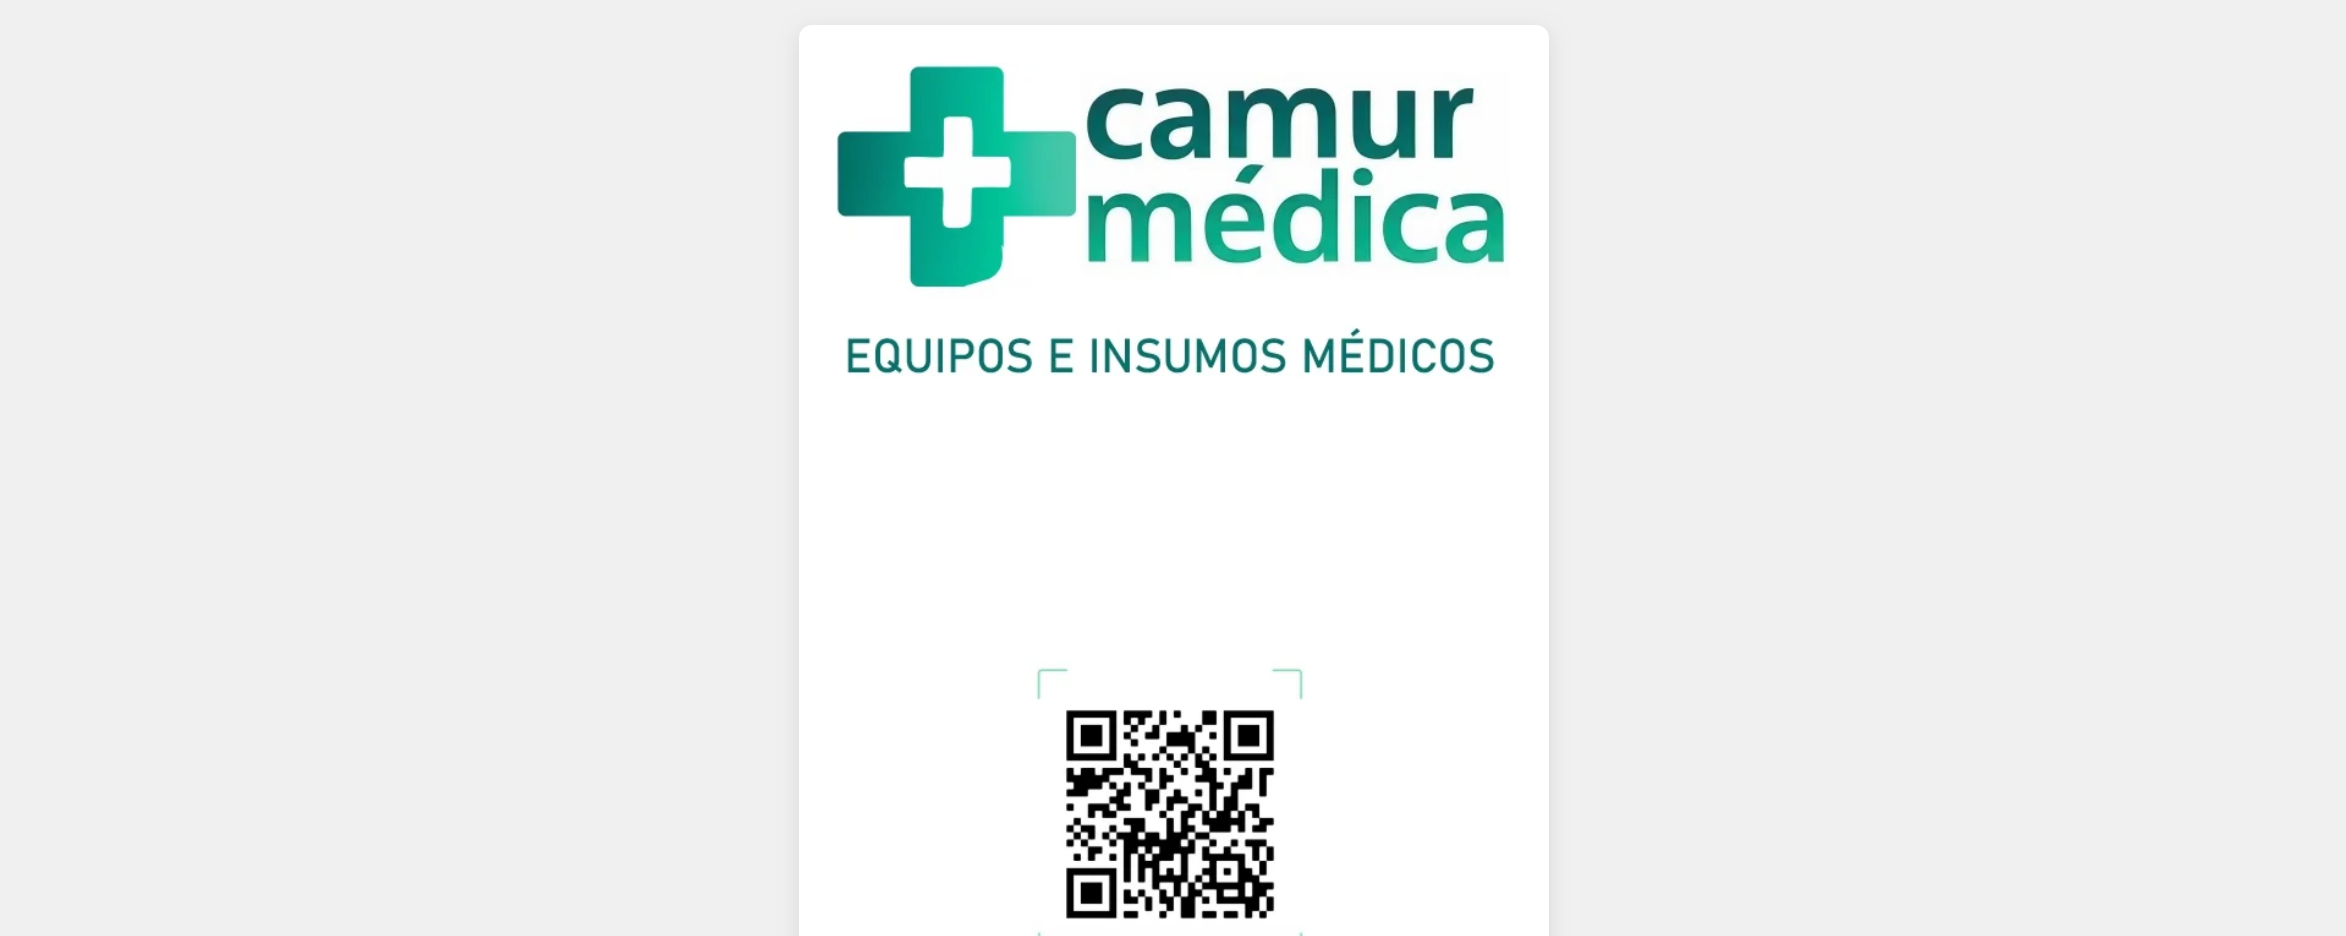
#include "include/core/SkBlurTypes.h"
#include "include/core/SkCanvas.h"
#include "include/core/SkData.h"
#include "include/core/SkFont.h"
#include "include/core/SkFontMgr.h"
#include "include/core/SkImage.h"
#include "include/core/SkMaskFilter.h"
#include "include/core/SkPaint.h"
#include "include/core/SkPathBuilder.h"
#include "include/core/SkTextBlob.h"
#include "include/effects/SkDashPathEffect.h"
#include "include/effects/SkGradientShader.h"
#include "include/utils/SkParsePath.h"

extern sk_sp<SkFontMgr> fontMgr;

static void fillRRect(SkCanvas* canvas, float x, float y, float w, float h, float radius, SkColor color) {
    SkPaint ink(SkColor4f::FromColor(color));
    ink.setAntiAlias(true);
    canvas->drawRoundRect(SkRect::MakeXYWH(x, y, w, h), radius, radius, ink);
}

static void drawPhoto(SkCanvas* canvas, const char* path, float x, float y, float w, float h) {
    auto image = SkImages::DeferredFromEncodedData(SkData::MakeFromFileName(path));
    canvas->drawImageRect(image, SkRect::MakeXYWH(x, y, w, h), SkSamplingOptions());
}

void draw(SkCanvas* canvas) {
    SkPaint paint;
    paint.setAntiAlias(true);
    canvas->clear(0xFFF0F0F0);
    paint.setColor(0x1A000000);
    paint.setMaskFilter(SkMaskFilter::MakeBlur(kNormal_SkBlurStyle, 9.5f));
    canvas->drawRoundRect(SkRect::MakeXYWH(799, 31, 750, 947), 13, 13, paint);
    paint.setMaskFilter(nullptr);
    fillRRect(canvas, 799, 25, 750, 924, 13, 0xFFFFFFFF);
    drawPhoto(canvas, "assets/img1.png", 836, 63, 674, 873);
}
